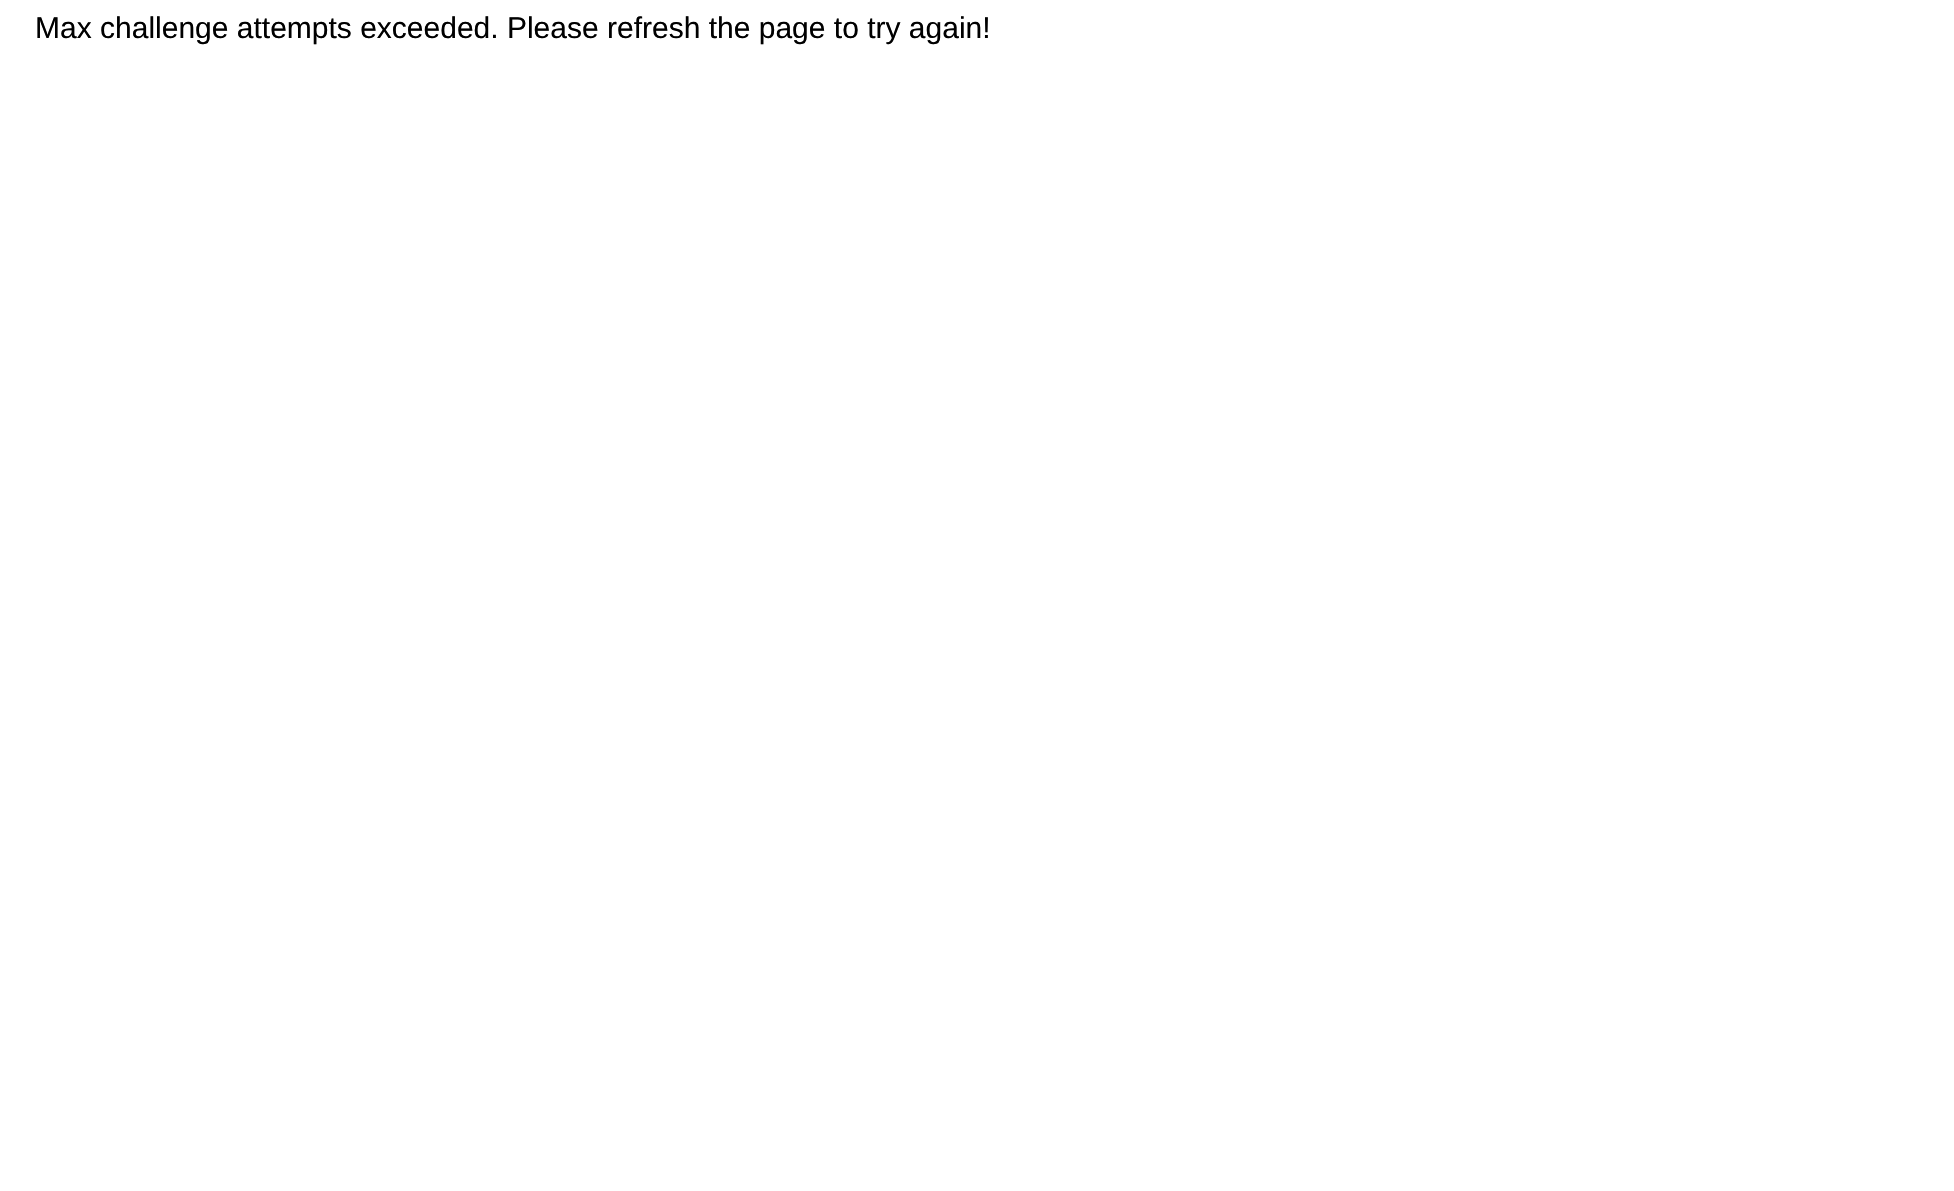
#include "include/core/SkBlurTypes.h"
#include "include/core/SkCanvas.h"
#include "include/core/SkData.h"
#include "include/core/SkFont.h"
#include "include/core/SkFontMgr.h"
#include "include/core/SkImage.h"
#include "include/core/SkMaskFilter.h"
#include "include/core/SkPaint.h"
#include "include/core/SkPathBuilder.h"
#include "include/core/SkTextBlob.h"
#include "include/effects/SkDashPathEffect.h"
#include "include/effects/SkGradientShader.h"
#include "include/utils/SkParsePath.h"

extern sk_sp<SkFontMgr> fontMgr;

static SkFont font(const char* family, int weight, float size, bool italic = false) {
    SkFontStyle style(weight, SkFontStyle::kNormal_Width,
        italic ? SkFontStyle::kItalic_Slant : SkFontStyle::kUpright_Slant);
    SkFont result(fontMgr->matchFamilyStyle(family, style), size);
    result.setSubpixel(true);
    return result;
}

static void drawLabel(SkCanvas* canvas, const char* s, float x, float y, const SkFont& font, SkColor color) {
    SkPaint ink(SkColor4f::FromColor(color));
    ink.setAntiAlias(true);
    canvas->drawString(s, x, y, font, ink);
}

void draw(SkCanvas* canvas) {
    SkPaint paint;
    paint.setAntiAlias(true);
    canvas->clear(0xFFFFFFFF);
    SkFont font1 = font("Liberation Sans", 400, 30);
    drawLabel(canvas, "Max challenge attempts exceeded. Please refresh the page to try again!", 35, 38, font1, 0xFF000000);
}
